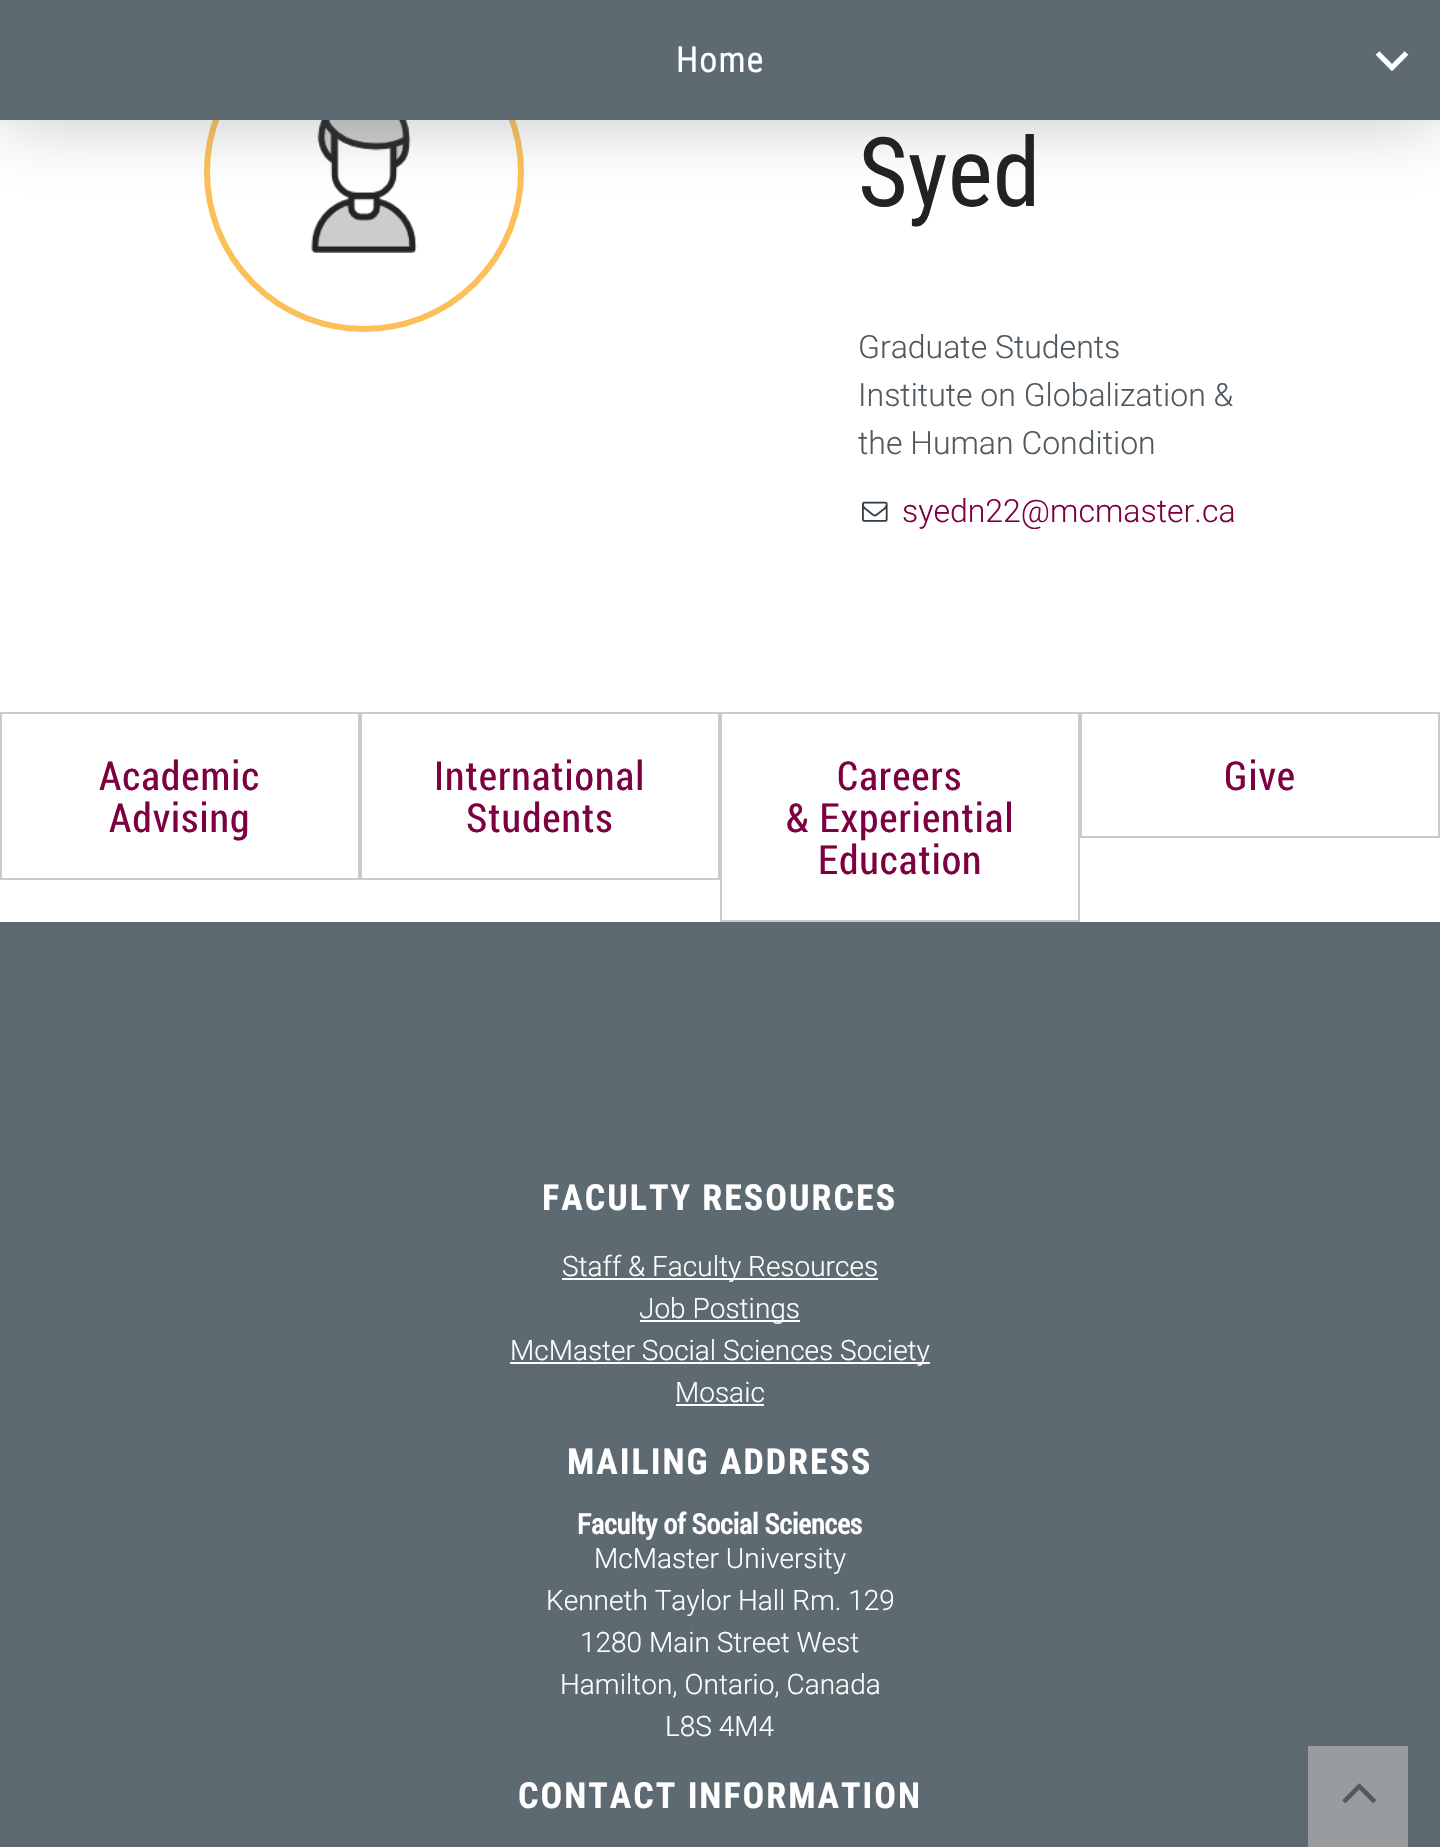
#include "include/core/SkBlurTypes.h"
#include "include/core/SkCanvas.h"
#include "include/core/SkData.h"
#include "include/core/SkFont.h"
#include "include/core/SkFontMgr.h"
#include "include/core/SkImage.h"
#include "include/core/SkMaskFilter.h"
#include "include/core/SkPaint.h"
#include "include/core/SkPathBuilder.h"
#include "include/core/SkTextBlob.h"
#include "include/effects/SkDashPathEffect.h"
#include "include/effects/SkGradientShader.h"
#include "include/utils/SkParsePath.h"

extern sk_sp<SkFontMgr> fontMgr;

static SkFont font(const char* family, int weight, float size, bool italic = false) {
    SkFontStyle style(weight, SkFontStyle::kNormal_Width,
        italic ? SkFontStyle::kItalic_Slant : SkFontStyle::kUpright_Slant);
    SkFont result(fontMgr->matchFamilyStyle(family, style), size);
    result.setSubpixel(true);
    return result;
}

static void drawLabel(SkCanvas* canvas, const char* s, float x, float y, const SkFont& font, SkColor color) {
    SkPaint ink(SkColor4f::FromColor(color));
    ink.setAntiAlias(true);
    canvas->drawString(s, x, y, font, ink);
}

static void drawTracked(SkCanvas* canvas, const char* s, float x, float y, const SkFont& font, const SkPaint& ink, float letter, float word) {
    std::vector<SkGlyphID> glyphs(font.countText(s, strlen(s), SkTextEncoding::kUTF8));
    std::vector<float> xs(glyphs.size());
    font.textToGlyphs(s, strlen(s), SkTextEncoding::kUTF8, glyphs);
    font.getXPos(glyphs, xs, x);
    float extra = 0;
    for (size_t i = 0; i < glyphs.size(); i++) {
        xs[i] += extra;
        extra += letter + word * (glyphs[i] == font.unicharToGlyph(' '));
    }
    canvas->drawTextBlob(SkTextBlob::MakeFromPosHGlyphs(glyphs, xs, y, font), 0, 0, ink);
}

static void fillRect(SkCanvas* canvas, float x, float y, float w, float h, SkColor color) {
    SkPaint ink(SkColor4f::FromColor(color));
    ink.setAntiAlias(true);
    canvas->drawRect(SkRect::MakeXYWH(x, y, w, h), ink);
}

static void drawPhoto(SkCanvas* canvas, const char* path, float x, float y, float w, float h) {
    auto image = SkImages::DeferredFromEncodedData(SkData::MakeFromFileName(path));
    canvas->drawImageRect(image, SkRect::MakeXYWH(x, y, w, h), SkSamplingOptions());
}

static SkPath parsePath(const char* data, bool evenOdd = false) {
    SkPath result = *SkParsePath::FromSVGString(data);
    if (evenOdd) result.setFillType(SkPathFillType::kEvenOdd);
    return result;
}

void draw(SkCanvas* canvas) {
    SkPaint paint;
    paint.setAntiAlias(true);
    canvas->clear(0xFFFFFFFF);
    paint.setStroke(true);
    paint.setStrokeWidth(6);
    paint.setColor(0xFFFDBF57);
    canvas->drawCircle(364, 172, 157, paint);
    drawPhoto(canvas, "assets/img1.png", 311, 120, 106, 133);
    paint.setStroke(false);
    paint.setColor(0x665E6A71);
    paint.setMaskFilter(SkMaskFilter::MakeBlur(kNormal_SkBlurStyle, 36));
    canvas->drawRect(SkRect::MakeXYWH(0, 0, 1440, 120), paint);
    paint.setMaskFilter(nullptr);
    fillRect(canvas, 0, 0, 1440, 120, 0xFF5E6A71);
    SkFont font1 = font("Roboto Condensed", 400, 36);
    paint.setColor(0xFFFFFFFF);
    drawTracked(canvas, "Home", 676, 72, font1, paint, 1, 0);
    paint.setStroke(true);
    paint.setStrokeWidth(5.3f);
    canvas->drawPath(parsePath("M1406.5 53L1392 67.5L1377.5 53"), paint);
    SkFont font2 = font("Roboto Condensed", 400, 96);
    drawLabel(canvas, "Syed", 858, 206, font2, 0xFF222222);
    SkFont font3 = font("Roboto", 300, 32);
    drawLabel(canvas, "Graduate Students", 858, 358, font3, 0xFF4F595F);
    drawLabel(canvas, "Institute on Globalization &", 858, 406, font3, 0xFF4F595F);
    drawLabel(canvas, "the Human Condition", 858, 454, font3, 0xFF4F595F);
    drawPhoto(canvas, "assets/img2.png", 862, 501, 26, 21);
    drawLabel(canvas, "syedn22@mcmaster.ca", 902, 522, font3, 0xFF7D0040);
    paint.setStrokeWidth(2);
    paint.setColor(0xFFC6CBCE);
    canvas->drawRect(SkRect::MakeXYWH(1, 713, 358, 166), paint);
    SkFont font4 = font("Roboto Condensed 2", 400, 40);
    paint.setStroke(false);
    paint.setColor(0xFF7D0040);
    drawTracked(canvas, "Academic", 99, 790, font4, paint, 1, 0);
    drawTracked(canvas, "Advising", 109, 832, font4, paint, 1, 0);
    paint.setStroke(true);
    paint.setColor(0xFFC6CBCE);
    canvas->drawRect(SkRect::MakeXYWH(361, 713, 358, 166), paint);
    paint.setStroke(false);
    paint.setColor(0xFF7D0040);
    drawTracked(canvas, "International", 434, 790, font4, paint, 1, 0);
    drawTracked(canvas, "Students", 466, 832, font4, paint, 1, 0);
    paint.setStroke(true);
    paint.setColor(0xFFC6CBCE);
    canvas->drawRect(SkRect::MakeXYWH(721, 713, 358, 208), paint);
    paint.setStroke(false);
    paint.setColor(0xFF7D0040);
    drawTracked(canvas, "Careers", 837, 790, font4, paint, 1, 0);
    drawTracked(canvas, "& Experiential", 786, 832, font4, paint, 1, 0);
    drawTracked(canvas, "Education", 818, 874, font4, paint, 1, 0);
    paint.setStroke(true);
    paint.setColor(0xFFC6CBCE);
    canvas->drawRect(SkRect::MakeXYWH(1081, 713, 358, 124), paint);
    paint.setStroke(false);
    paint.setColor(0xFF7D0040);
    drawTracked(canvas, "Give", 1224, 790, font4, paint, 1, 0);
    fillRect(canvas, 0, 922, 1440, 925, 0xFF5E6A71);
    SkFont font5 = font("Roboto Condensed", 700, 36);
    paint.setColor(0xFFFFFFFF);
    drawTracked(canvas, "FACULTY RESOURCES", 542, 1210, font5, paint, 2, 0);
    fillRect(canvas, 562, 1278, 316, 2, 0xFFFFFFFF);
    SkFont font6 = font("Roboto", 300, 28);
    drawLabel(canvas, "Staff & Faculty Resources", 562, 1276, font6, 0xFFFFFFFF);
    fillRect(canvas, 640, 1320, 160, 2, 0xFFFFFFFF);
    drawLabel(canvas, "Job Postings", 639, 1318, font6, 0xFFFFFFFF);
    fillRect(canvas, 510, 1362, 420, 2, 0xFFFFFFFF);
    drawLabel(canvas, "McMaster Social Sciences Society", 510, 1360, font6, 0xFFFFFFFF);
    drawLabel(canvas, "Mosaic", 675, 1402, font6, 0xFFFFFFFF);
    fillRect(canvas, 676, 1404, 88, 2, 0xFFFFFFFF);
    drawTracked(canvas, "MAILING ADDRESS", 567, 1474, font5, paint, 2, 0);
    SkFont font7 = font("Roboto Condensed 2", 700, 28);
    drawLabel(canvas, "Faculty of Social Sciences", 577, 1534, font7, 0xFFFFFFFF);
    drawLabel(canvas, "McMaster University", 594, 1568, font6, 0xFFFFFFFF);
    drawLabel(canvas, "Kenneth Taylor Hall Rm. 129", 546, 1610, font6, 0xFFFFFFFF);
    drawLabel(canvas, "1280 Main Street West", 580, 1652, font6, 0xFFFFFFFF);
    drawLabel(canvas, "Hamilton, Ontario, Canada", 560, 1694, font6, 0xFFFFFFFF);
    drawLabel(canvas, "L8S 4M4", 665, 1736, font6, 0xFFFFFFFF);
    drawTracked(canvas, "CONTACT INFORMATION", 518, 1808, font5, paint, 2, 0);
    fillRect(canvas, 1308, 1746, 100, 101, 0xFF999C9F);
    drawPhoto(canvas, "assets/img3.png", 1342, 1783, 34, 20);
}
